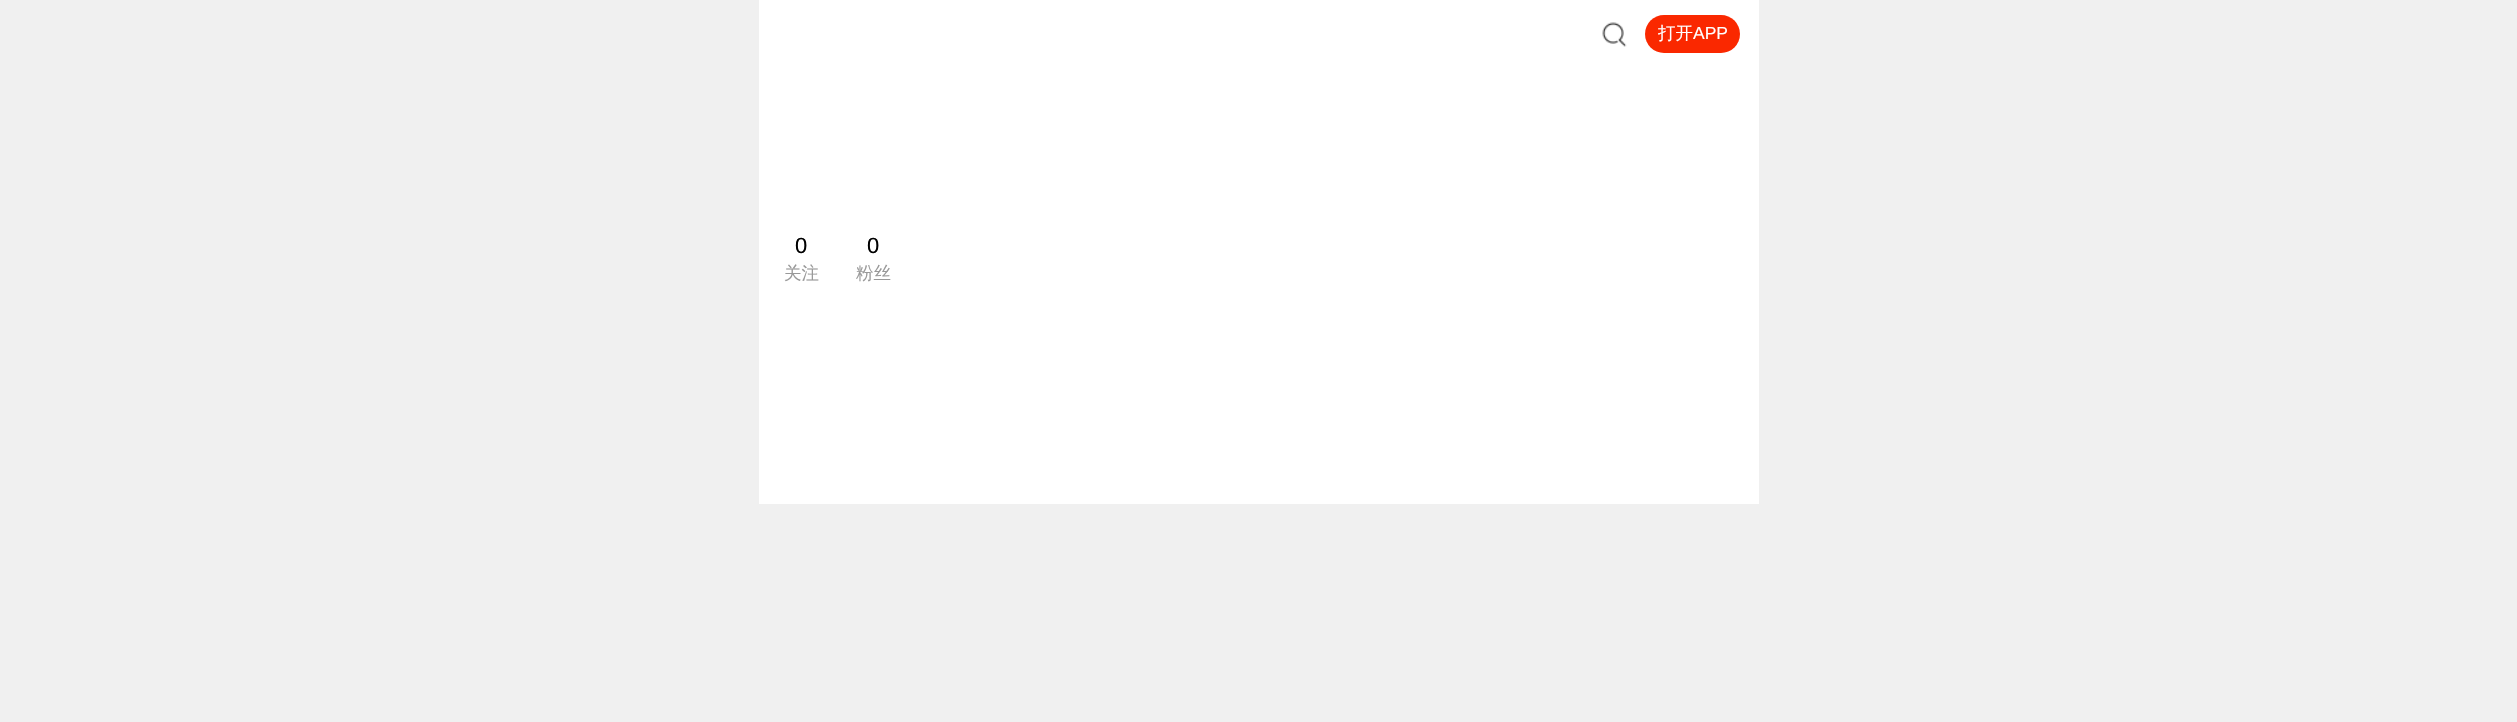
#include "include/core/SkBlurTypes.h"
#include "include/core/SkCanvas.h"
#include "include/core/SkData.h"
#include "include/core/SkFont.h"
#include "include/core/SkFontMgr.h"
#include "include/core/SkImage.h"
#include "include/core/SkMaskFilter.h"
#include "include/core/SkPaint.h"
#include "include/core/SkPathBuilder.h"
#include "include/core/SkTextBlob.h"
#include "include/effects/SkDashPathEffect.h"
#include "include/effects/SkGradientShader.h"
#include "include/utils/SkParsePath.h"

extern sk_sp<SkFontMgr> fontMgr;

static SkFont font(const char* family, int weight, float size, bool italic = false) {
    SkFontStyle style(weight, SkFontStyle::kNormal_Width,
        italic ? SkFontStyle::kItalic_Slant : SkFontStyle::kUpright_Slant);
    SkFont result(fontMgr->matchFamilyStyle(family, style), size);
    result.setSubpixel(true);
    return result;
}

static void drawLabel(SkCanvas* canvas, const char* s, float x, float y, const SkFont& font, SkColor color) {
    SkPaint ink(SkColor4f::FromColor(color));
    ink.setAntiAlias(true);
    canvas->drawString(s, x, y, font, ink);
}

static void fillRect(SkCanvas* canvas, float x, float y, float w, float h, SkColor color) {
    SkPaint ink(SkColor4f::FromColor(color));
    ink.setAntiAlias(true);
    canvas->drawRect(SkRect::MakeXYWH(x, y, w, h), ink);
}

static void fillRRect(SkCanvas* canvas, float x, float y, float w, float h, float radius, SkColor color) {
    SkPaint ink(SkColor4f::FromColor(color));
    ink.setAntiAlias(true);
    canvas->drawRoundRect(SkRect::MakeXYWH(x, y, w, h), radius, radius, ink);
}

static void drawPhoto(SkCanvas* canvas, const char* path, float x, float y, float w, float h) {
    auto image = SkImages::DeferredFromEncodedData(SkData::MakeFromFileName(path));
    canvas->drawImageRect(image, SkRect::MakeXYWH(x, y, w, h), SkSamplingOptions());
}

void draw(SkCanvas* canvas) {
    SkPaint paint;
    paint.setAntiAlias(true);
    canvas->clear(0xFFF0F0F0);
    fillRect(canvas, 759, 0, 1000, 504, 0xFFFFFFFF);
    drawPhoto(canvas, "assets/img1.png", 1602, 22, 25, 25);
    fillRRect(canvas, 1645, 15, 95, 38, 19, 0xFFFA2800);
    SkFont font1 = font("WenQuanYi Zen Hei", 500, 17.5f);
    drawLabel(canvas, "打开", 1658, 39, font1, 0xFFFFFFFF);
    SkFont font2 = font("Liberation Sans", 400, 17.5f);
    drawLabel(canvas, "APP", 1693, 39, font2, 0xFFFFFFFF);
    SkFont font3 = font("Liberation Sans", 400, 22);
    drawLabel(canvas, "0", 795, 253, font3, 0xFF000000);
    drawLabel(canvas, "关注", 784, 279, font1, 0xFF999999);
    drawLabel(canvas, "0", 867, 253, font3, 0xFF000000);
    drawLabel(canvas, "粉丝", 856, 279, font1, 0xFF999999);
}
